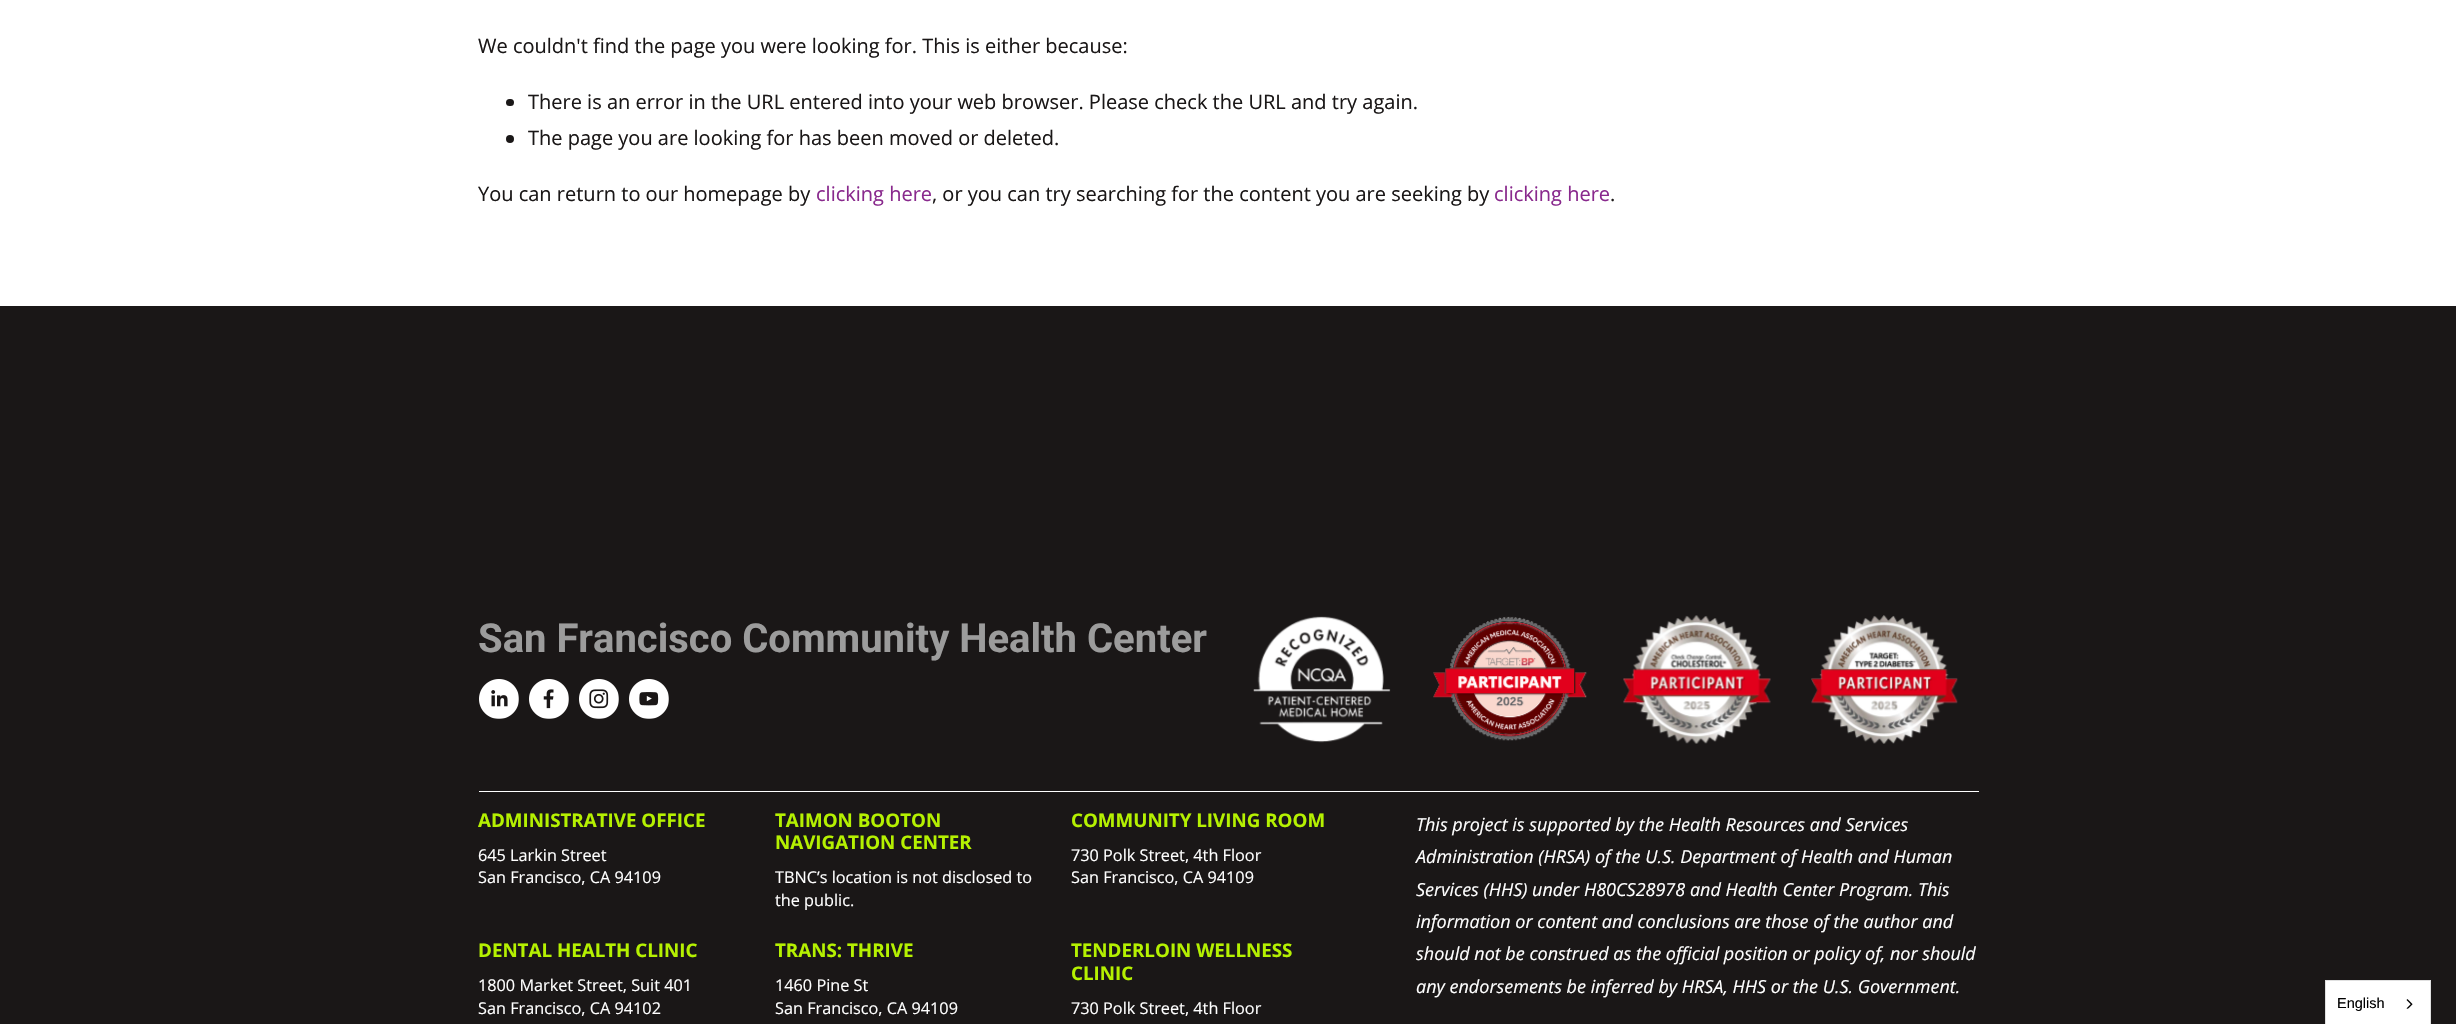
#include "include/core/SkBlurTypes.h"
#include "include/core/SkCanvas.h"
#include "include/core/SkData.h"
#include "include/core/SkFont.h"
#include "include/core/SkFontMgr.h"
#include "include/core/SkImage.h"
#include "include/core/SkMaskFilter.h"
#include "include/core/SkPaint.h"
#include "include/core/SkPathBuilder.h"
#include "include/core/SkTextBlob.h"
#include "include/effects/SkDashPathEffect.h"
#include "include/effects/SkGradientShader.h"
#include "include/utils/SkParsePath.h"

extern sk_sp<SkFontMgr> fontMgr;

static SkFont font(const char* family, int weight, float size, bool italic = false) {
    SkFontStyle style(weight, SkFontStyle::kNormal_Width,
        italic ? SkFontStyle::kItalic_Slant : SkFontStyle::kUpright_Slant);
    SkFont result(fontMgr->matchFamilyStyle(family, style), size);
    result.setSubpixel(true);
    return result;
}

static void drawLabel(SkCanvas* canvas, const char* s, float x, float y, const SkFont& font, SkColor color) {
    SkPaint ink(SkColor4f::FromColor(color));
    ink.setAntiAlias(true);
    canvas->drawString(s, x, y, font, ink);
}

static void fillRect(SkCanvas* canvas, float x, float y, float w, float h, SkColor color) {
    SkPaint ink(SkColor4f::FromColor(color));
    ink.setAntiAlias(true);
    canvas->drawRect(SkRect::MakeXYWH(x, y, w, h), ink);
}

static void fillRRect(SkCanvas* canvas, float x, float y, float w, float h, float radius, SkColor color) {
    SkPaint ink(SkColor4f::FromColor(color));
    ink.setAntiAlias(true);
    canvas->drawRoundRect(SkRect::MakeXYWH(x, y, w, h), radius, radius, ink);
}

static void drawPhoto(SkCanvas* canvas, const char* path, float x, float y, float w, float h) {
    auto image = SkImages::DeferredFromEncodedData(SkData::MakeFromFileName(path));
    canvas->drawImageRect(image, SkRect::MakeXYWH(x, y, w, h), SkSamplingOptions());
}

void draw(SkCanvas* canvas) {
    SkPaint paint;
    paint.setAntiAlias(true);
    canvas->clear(0xFFFFFFFF);
    SkFont font1 = font("Open Sans", 400, 20);
    drawLabel(canvas, "We couldn't find the page you were looking for. This is either because:", 478, 53, font1, 0xFF1A1717);
    fillRRect(canvas, 506, 99, 8, 7, 3.5f, 0xFF1A1717);
    drawLabel(canvas, "There is an error in the URL entered into your web browser. Please check the URL and try again.", 528, 109, font1, 0xFF1A1717);
    paint.setColor(0xFF1A1717);
    canvas->drawCircle(510, 139, 4, paint);
    drawLabel(canvas, "The page you are looking for has been moved or deleted.", 528, 145, font1, 0xFF1A1717);
    drawLabel(canvas, "You can return to our homepage by", 478, 201, font1, 0xFF1A1717);
    drawLabel(canvas, "clicking here", 816, 201, font1, 0xFF89298D);
    drawLabel(canvas, ", or you can try searching for the content you are seeking by", 932, 201, font1, 0xFF1A1717);
    drawLabel(canvas, "clicking here", 1494, 201, font1, 0xFF89298D);
    drawLabel(canvas, ".", 1610, 201, font1, 0xFF1A1717);
    fillRect(canvas, 0, 306, 2456, 718, 0xFF1A1717);
    SkFont font2 = font("Roboto", 700, 40);
    drawLabel(canvas, "San Francisco Community Health Center", 478, 652, font2, 0xFF9C9C9C);
    drawPhoto(canvas, "assets/img1.png", 1253, 616, 138, 127);
    drawPhoto(canvas, "assets/img2.png", 1433, 616, 154, 125);
    drawPhoto(canvas, "assets/img3.png", 1623, 615, 148, 129);
    drawPhoto(canvas, "assets/img4.png", 1811, 615, 147, 129);
    drawPhoto(canvas, "assets/img5.png", 479, 679, 40, 40);
    drawPhoto(canvas, "assets/img6.png", 529, 679, 40, 40);
    drawPhoto(canvas, "assets/img7.png", 579, 679, 40, 40);
    drawPhoto(canvas, "assets/img8.png", 629, 679, 40, 40);
    fillRect(canvas, 479, 791, 1500, 1, 0xFFFFFFFF);
    SkFont font3 = font("Open Sans", 700, 18.75f);
    drawLabel(canvas, "ADMINISTRATIVE OFFICE", 478, 827, font3, 0xFFB5F101);
    SkFont font4 = font("Open Sans", 400, 16.25f);
    drawLabel(canvas, "645 Larkin Street", 478, 861, font4, 0xFFFFFFFF);
    drawLabel(canvas, "San Francisco, CA 94109", 478, 883, font4, 0xFFFFFFFF);
    drawLabel(canvas, "TAIMON BOOTON", 775, 827, font3, 0xFFB5F101);
    drawLabel(canvas, "NAVIGATION CENTER", 775, 849, font3, 0xFFB5F101);
    drawLabel(canvas, "TBNC’s location is not disclosed to", 775, 883, font4, 0xFFFFFFFF);
    drawLabel(canvas, "the public.", 775, 906, font4, 0xFFFFFFFF);
    drawLabel(canvas, "COMMUNITY LIVING ROOM", 1071, 827, font3, 0xFFB5F101);
    drawLabel(canvas, "730 Polk Street, 4th Floor", 1071, 861, font4, 0xFFFFFFFF);
    drawLabel(canvas, "San Francisco, CA 94109", 1071, 883, font4, 0xFFFFFFFF);
    drawLabel(canvas, "DENTAL HEALTH CLINIC", 478, 957, font3, 0xFFB5F101);
    drawLabel(canvas, "1800 Market Street, Suit 401", 478, 991, font4, 0xFFFFFFFF);
    drawLabel(canvas, "San Francisco, CA 94102", 478, 1014, font4, 0xFFFFFFFF);
    drawLabel(canvas, "TRANS: THRIVE", 775, 957, font3, 0xFFB5F101);
    drawLabel(canvas, "1460 Pine St", 775, 991, font4, 0xFFFFFFFF);
    drawLabel(canvas, "San Francisco, CA 94109", 775, 1014, font4, 0xFFFFFFFF);
    drawLabel(canvas, "TENDERLOIN WELLNESS", 1071, 957, font3, 0xFFB5F101);
    drawLabel(canvas, "CLINIC", 1071, 980, font3, 0xFFB5F101);
    drawLabel(canvas, "730 Polk Street, 4th Floor", 1071, 1014, font4, 0xFFFFFFFF);
    SkFont font5 = font("Open Sans", 400, 18, true);
    drawLabel(canvas, "This project is supported by the Health Resources and Services", 1416, 831, font5, 0xFFFFFFFF);
    drawLabel(canvas, "Administration (HRSA) of the U.S. Department of Health and Human", 1416, 863, font5, 0xFFFFFFFF);
    drawLabel(canvas, "Services (HHS) under H80CS28978 and Health Center Program. This", 1416, 896, font5, 0xFFFFFFFF);
    drawLabel(canvas, "information or content and conclusions are those of the author and", 1416, 928, font5, 0xFFFFFFFF);
    drawLabel(canvas, "should not be construed as the official position or policy of, nor should", 1416, 960, font5, 0xFFFFFFFF);
    drawLabel(canvas, "any endorsements be inferred by HRSA, HHS or the U.S. Government.", 1416, 993, font5, 0xFFFFFFFF);
    paint.setColor(0xFFFFFFFF);
    canvas->drawRect(SkRect::MakeXYWH(2325.5f, 980.5f, 105, 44), paint);
    paint.setStroke(true);
    paint.setStrokeWidth(1);
    paint.setColor(0xFFE0E0E0);
    canvas->drawRect(SkRect::MakeXYWH(2325.5f, 980.5f, 105, 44), paint);
    SkFont font6 = font("Liberation Sans", 400, 14.5f);
    drawLabel(canvas, "English", 2337, 1008, font6, 0xFF000000);
    drawPhoto(canvas, "assets/img9.png", 2406, 999, 7, 10);
}
